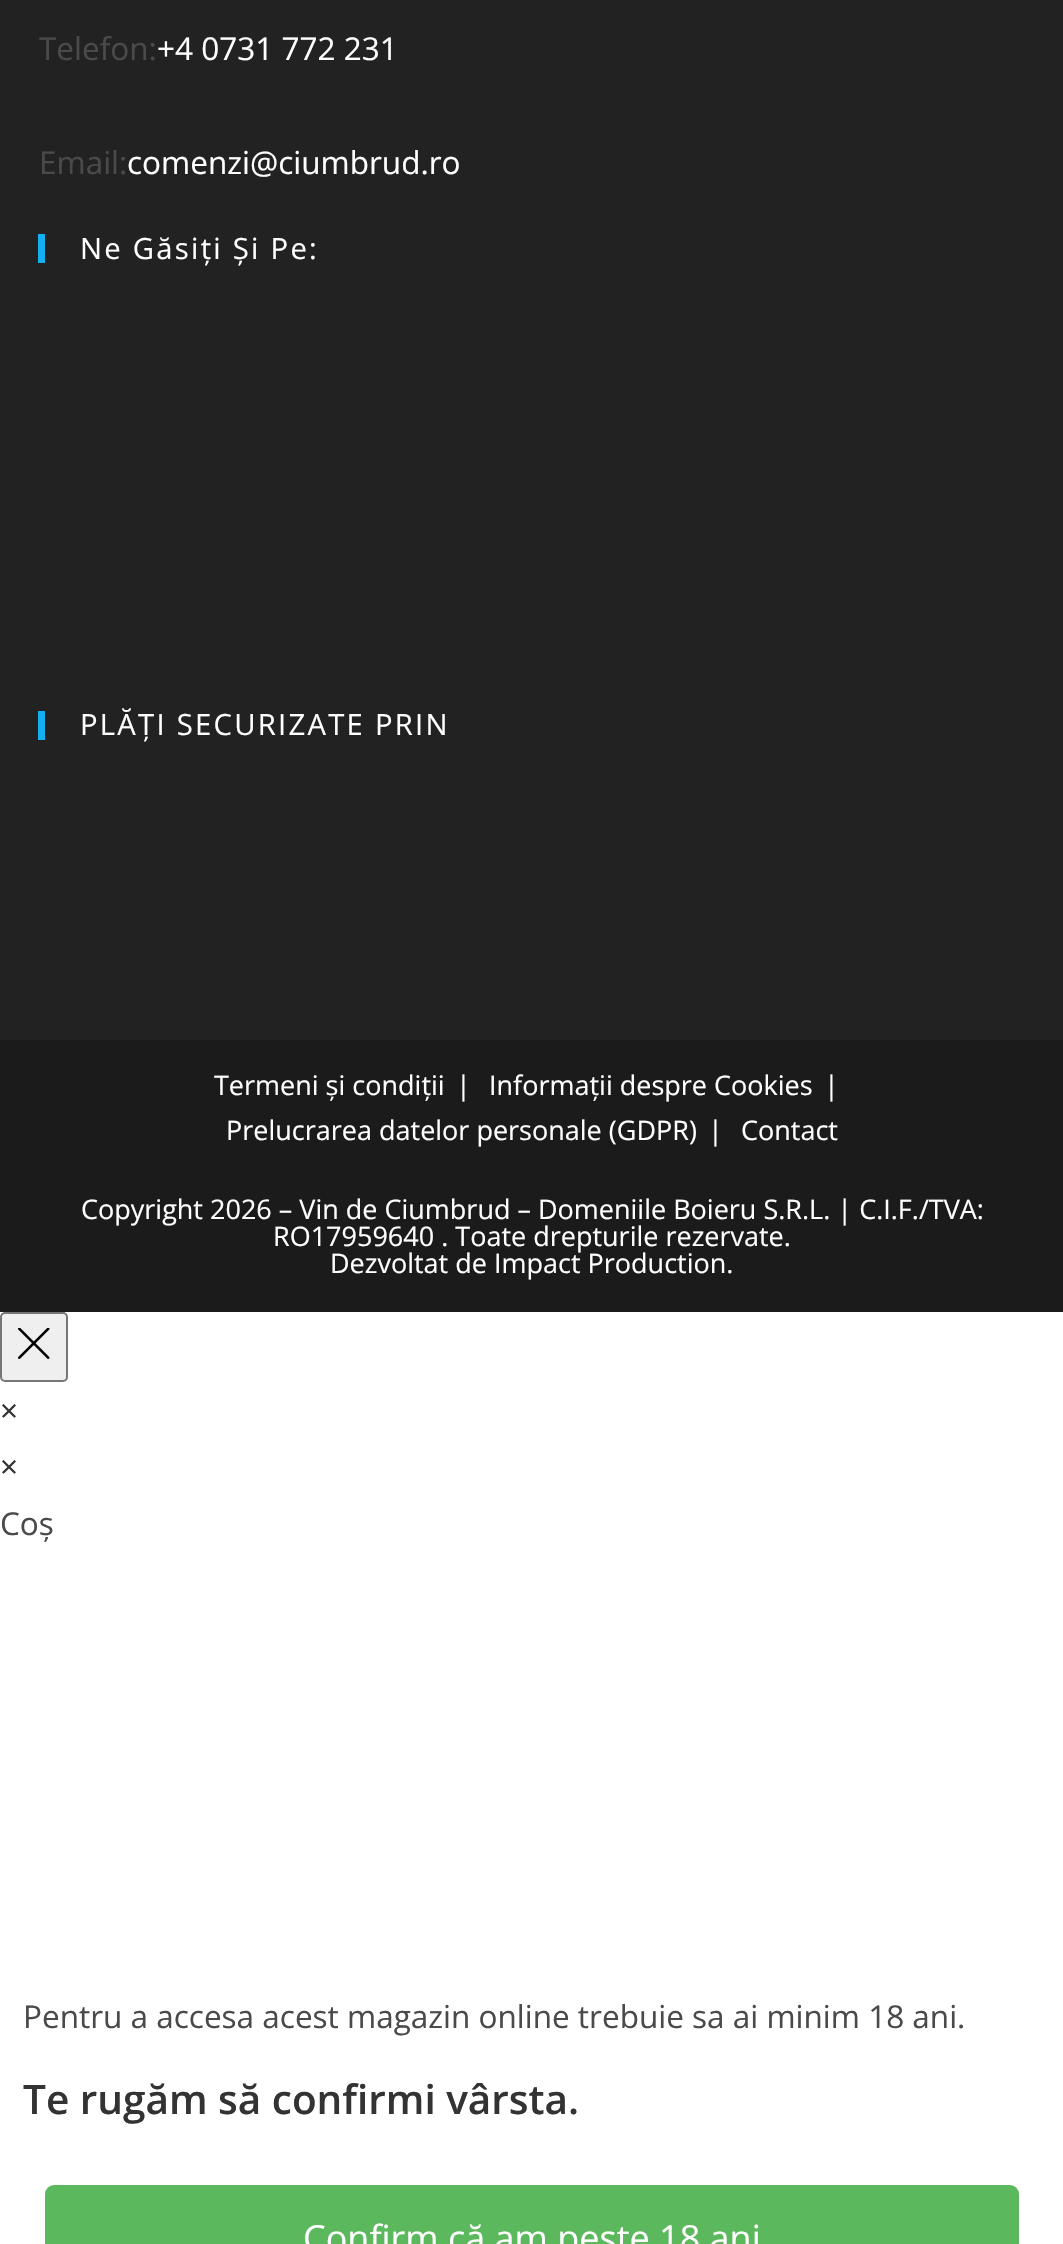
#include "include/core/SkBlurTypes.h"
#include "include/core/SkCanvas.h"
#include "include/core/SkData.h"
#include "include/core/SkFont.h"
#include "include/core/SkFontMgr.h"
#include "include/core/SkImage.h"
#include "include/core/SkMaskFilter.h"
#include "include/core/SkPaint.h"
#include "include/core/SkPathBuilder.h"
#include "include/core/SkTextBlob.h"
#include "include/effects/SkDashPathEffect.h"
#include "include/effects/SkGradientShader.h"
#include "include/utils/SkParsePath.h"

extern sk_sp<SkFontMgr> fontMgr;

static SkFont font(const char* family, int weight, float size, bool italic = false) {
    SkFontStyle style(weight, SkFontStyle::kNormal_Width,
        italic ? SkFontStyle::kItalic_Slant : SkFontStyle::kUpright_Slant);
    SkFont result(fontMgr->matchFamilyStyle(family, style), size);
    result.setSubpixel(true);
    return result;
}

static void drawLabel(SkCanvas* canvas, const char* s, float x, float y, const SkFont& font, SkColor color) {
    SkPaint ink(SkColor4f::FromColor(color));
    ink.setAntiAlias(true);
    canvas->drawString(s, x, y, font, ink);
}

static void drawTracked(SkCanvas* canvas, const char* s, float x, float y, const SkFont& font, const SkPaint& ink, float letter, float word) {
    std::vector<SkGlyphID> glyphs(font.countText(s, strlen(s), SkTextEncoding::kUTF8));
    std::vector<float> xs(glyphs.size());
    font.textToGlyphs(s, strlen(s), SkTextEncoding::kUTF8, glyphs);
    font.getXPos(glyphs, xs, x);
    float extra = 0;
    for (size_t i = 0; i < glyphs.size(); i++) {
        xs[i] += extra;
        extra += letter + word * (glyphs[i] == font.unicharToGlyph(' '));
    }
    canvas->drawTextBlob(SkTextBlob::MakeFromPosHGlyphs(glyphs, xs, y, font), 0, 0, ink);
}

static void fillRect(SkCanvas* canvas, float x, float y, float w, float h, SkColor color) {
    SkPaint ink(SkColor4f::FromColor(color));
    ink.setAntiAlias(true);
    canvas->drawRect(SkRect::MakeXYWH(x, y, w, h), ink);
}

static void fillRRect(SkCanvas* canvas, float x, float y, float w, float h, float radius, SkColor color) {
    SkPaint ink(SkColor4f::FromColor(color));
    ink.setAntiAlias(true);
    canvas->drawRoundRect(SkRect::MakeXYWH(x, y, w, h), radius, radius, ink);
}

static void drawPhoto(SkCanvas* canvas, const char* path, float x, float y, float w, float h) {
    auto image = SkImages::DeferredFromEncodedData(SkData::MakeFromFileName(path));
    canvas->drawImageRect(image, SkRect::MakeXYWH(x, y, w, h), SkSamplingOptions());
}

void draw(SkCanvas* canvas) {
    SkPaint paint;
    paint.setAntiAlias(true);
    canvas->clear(0xFFFFFFFF);
    fillRect(canvas, 0, 0, 1063, 1040, 0xFF222222);
    SkFont font1 = font("Open Sans", 400, 31.5f);
    drawLabel(canvas, "Telefon:", 39, 60, font1, 0xFF4A4A4A);
    drawLabel(canvas, "+4 0731 772 231", 157, 60, font1, 0xFFFFFFFF);
    drawLabel(canvas, "Email:", 39, 174, font1, 0xFF4A4A4A);
    drawLabel(canvas, "comenzi@ciumbrud.ro", 127, 174, font1, 0xFFFFFFFF);
    fillRect(canvas, 38, 234, 7, 29, 0xFF13AFF0);
    SkFont font2 = font("Open Sans", 400, 29.25f);
    paint.setColor(0xFFFFFFFF);
    drawTracked(canvas, "Ne Găsiți Și Pe:", 80, 259, font2, paint, 2.25f, 0);
    fillRect(canvas, 38, 711, 7, 29, 0xFF13AFF0);
    drawTracked(canvas, "PLĂȚI SECURIZATE PRIN", 80, 735, font2, paint, 2.25f, 0);
    fillRect(canvas, 0, 1040, 1063, 272, 0xFF1B1B1B);
    SkFont font3 = font("Open Sans", 400, 27);
    drawLabel(canvas, "Termeni și condiții", 214, 1095, font3, 0xFFFFFFFF);
    drawLabel(canvas, "|", 456, 1095, font3, 0xFFFFFFFF);
    drawLabel(canvas, "Informații despre Cookies", 489, 1095, font3, 0xFFFFFFFF);
    drawLabel(canvas, "|", 824, 1095, font3, 0xFFFFFFFF);
    drawLabel(canvas, "Prelucrarea datelor personale (GDPR)", 226, 1140, font3, 0xFFFFFFFF);
    drawLabel(canvas, "|", 708, 1140, font3, 0xFFFFFFFF);
    drawLabel(canvas, "Contact", 741, 1140, font3, 0xFFFFFFFF);
    drawLabel(canvas, "Copyright 2026 – Vin de Ciumbrud – Domeniile Boieru S.R.L. | C.I.F./TVA:", 81, 1219, font3, 0xFFFFFFFF);
    drawLabel(canvas, "RO17959640 . Toate drepturile rezervate.", 273, 1246, font3, 0xFFFFFFFF);
    drawLabel(canvas, "Dezvoltat de Impact Production.", 330, 1273, font3, 0xFFFFFFFF);
    paint.setColor(0xFFEFEFEF);
    canvas->drawRoundRect(SkRect::MakeXYWH(1, 1313, 66, 68), 4, 4, paint);
    paint.setStroke(true);
    paint.setStrokeWidth(2);
    paint.setColor(0xFF767676);
    canvas->drawRoundRect(SkRect::MakeXYWH(1, 1313, 66, 68), 4, 4, paint);
    drawPhoto(canvas, "assets/img1.png", 18, 1328, 32, 31);
    drawLabel(canvas, "×", 0, 1422, font1, 0xFF333333);
    drawLabel(canvas, "×", 0, 1478, font1, 0xFF333333);
    drawLabel(canvas, "Coș", 0, 1535, font1, 0xFF4A4A4A);
    drawLabel(canvas, "Pentru a accesa acest magazin online trebuie sa ai minim 18 ani.", 23, 2028, font1, 0xFF4A4A4A);
    SkFont font4 = font("Open Sans", 600, 40.5f);
    drawLabel(canvas, "Te rugăm să confirmi vârsta.", 23, 2114, font4, 0xFF333333);
    fillRRect(canvas, 45, 2185, 974, 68, 9, 0xFF5CB85C);
    SkFont font5 = font("Open Sans", 400, 36);
    drawLabel(canvas, "Confirm că am peste 18 ani", 303, 2251, font5, 0xFFFFFFFF);
}
